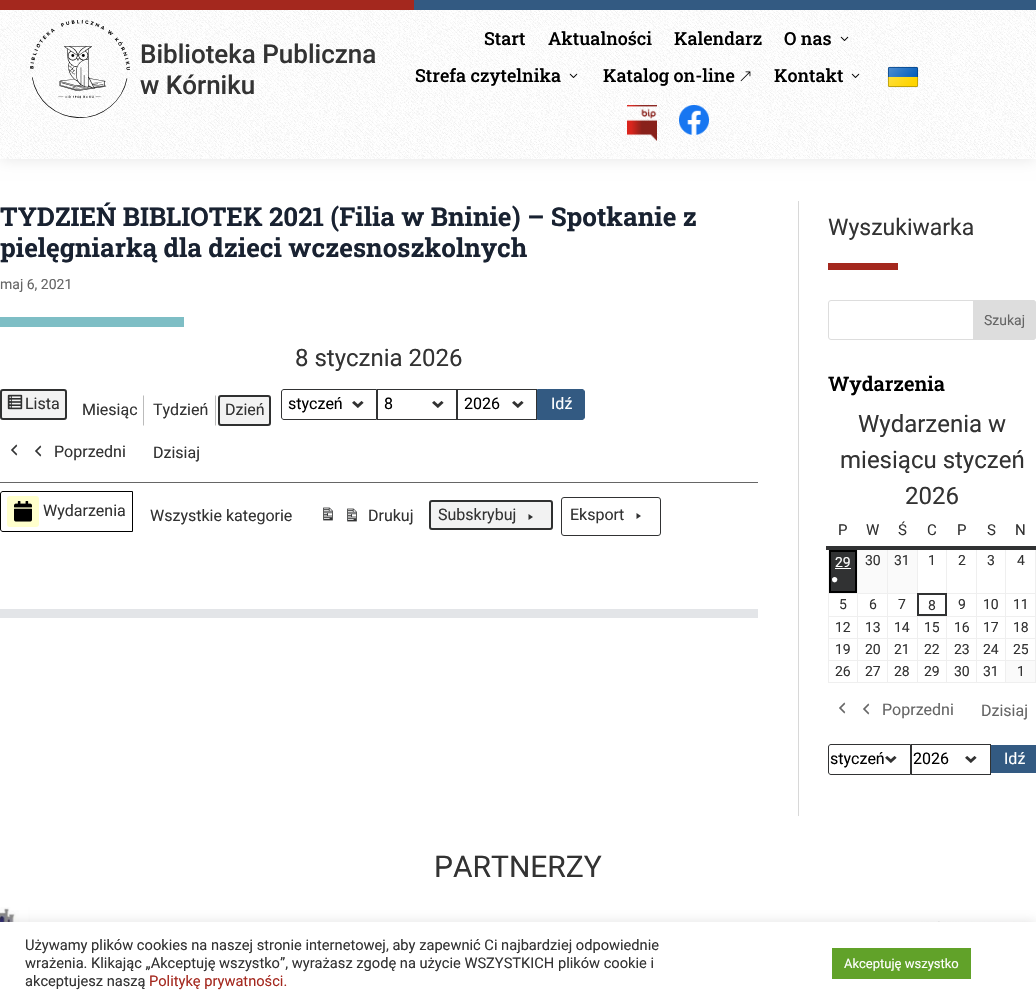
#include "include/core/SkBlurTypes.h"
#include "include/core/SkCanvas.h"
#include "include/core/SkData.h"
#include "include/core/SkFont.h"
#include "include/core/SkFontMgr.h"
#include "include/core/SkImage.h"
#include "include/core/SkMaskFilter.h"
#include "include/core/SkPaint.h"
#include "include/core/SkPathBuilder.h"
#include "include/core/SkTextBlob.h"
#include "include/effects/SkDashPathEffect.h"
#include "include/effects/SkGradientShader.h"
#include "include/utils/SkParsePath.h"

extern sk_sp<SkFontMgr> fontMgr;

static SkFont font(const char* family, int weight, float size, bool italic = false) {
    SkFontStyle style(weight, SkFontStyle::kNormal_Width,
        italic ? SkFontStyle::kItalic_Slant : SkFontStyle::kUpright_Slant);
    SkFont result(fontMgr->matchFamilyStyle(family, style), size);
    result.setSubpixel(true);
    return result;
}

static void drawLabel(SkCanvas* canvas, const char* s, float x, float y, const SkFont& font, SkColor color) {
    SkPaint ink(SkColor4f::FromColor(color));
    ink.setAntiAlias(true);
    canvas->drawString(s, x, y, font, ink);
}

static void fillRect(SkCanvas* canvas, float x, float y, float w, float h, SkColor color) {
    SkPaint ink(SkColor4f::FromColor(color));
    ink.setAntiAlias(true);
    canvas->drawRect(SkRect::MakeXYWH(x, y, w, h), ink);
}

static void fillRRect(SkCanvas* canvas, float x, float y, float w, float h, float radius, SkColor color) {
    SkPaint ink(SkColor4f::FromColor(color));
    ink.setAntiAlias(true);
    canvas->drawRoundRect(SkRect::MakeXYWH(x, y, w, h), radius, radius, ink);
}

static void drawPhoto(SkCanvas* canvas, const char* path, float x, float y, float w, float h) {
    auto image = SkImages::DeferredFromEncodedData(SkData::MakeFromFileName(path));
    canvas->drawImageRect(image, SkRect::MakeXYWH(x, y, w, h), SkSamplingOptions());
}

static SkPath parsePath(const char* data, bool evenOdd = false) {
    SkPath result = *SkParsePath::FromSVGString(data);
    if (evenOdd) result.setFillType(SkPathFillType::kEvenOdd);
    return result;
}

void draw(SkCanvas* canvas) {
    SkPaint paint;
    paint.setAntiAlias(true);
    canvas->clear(0xFFFFFFFF);
    paint.setColor(0x1A000000);
    paint.setMaskFilter(SkMaskFilter::MakeBlur(kNormal_SkBlurStyle, 7.5f));
    canvas->drawRect(SkRect::MakeXYWH(0, 10, 1036, 149), paint);
    paint.setMaskFilter(nullptr);
    fillRect(canvas, 0, 0, 414, 10, 0xFFA4281E);
    fillRect(canvas, 414, 0, 622, 10, 0xFF335A82);
    drawPhoto(canvas, "assets/img1.png", 0, 10, 1036, 149);
    drawPhoto(canvas, "assets/img2.png", 30, 20, 100, 98);
    SkFont font1 = font("Roboto", 500, 26);
    drawLabel(canvas, "Biblioteka Publiczna", 140, 63, font1, 0xFF333333);
    drawLabel(canvas, "w Kórniku", 140, 94, font1, 0xFF333333);
    SkFont font2 = font("Roboto Slab", 500, 18);
    drawLabel(canvas, "Start", 484, 45, font2, 0xFF000000);
    drawLabel(canvas, "Aktualności", 548, 45, font2, 0xFF000000);
    drawLabel(canvas, "Kalendarz", 674, 45, font2, 0xFF000000);
    drawLabel(canvas, "O nas", 784, 45, font2, 0xFF000000);
    drawPhoto(canvas, "assets/img3.png", 840, 36, 9, 5);
    drawLabel(canvas, "Strefa czytelnika", 415, 82, font2, 0xFF000000);
    drawPhoto(canvas, "assets/img4.png", 569, 73, 9, 5);
    drawLabel(canvas, "Katalog on-line", 603, 82, font2, 0xFF000000);
    drawPhoto(canvas, "assets/img5.png", 740, 71, 11, 11);
    drawLabel(canvas, "Kontakt", 774, 82, font2, 0xFF000000);
    drawPhoto(canvas, "assets/img6.png", 851, 73, 9, 5);
    drawPhoto(canvas, "assets/img7.png", 887, 66, 32, 22);
    drawPhoto(canvas, "assets/img8.png", 627, 105, 30, 36);
    drawPhoto(canvas, "assets/img9.png", 679, 105, 30, 30);
    SkFont font3 = font("Roboto Slab", 700, 26);
    drawLabel(canvas, "TYDZIEŃ BIBLIOTEK 2021 (Filia w Bninie) – Spotkanie z", 0, 226, font3, 0xFF192231);
    drawLabel(canvas, "pielęgniarką dla dzieci wczesnoszkolnych", 0, 257, font3, 0xFF192231);
    SkFont font4 = font("Roboto", 400, 14);
    drawLabel(canvas, "maj 6, 2021", 0, 289, font4, 0xFF666666);
    fillRect(canvas, 0, 317, 184, 10, 0xFF7EBEC5);
    SkFont font5 = font("Roboto", 400, 24);
    drawLabel(canvas, "8 stycznia 2026", 295, 366, font5, 0xFF333333);
    fillRRect(canvas, 0, 389, 67, 31, 3, 0xFFF2F2F2);
    paint.setStroke(true);
    paint.setStrokeWidth(2);
    paint.setColor(0xFF2F3030);
    canvas->drawRoundRect(SkRect::MakeXYWH(1, 390, 65, 29), 2, 2, paint);
    drawPhoto(canvas, "assets/img10.png", 7, 394, 16, 16);
    SkFont font6 = font("Roboto", 400, 16);
    drawLabel(canvas, "Lista", 25, 409, font6, 0xFF333333);
    paint.setStroke(false);
    paint.setColor(0xFFBBBBBB);
    canvas->drawPath(parsePath("M144 395L143 396V425L144 426Z"), paint);
    drawLabel(canvas, "Miesiąc", 82, 415, font6, 0xFF333333);
    canvas->drawPath(parsePath("M216 395V426L215 425V396Z"), paint);
    drawLabel(canvas, "Tydzień", 153, 415, font6, 0xFF333333);
    fillRRect(canvas, 218, 395, 53, 31, 3, 0xFFF2F2F2);
    paint.setStroke(true);
    paint.setColor(0xFF2F3030);
    canvas->drawRoundRect(SkRect::MakeXYWH(219, 396, 51, 29), 2, 2, paint);
    drawLabel(canvas, "Dzień", 225, 415, font6, 0xFF333333);
    drawPhoto(canvas, "assets/img11.png", 352, 401, 12, 7);
    paint.setStrokeWidth(1);
    paint.setColor(0xFF313233);
    canvas->drawPath(parsePath("M284 389.5H376.5V419.5H284C282.5 419.5 281.5 418.5 281.5 417V392C281.5 390.5 282.5 389.5 284 389.5Z"), paint);
    drawLabel(canvas, "styczeń", 288, 409, font6, 0xFF000000);
    drawPhoto(canvas, "assets/img11.png", 432, 401, 12, 7);
    canvas->drawRect(SkRect::MakeXYWH(377.5f, 389.5f, 79, 30), paint);
    drawLabel(canvas, "8", 384, 409, font6, 0xFF000000);
    drawPhoto(canvas, "assets/img11.png", 512, 401, 12, 7);
    canvas->drawRect(SkRect::MakeXYWH(457.5f, 389.5f, 79, 30), paint);
    drawLabel(canvas, "2026", 464, 409, font6, 0xFF000000);
    paint.setStroke(false);
    paint.setColor(0xFF335A82);
    canvas->drawPath(parsePath("M537.5 389.5H582C583.5 389.5 584.5 390.5 584.5 392V417C584.5 418.5 583.5 419.5 582 419.5H537.5Z"), paint);
    paint.setStroke(true);
    canvas->drawPath(parsePath("M537.5 389.5H582C583.5 389.5 584.5 390.5 584.5 392V417C584.5 418.5 583.5 419.5 582 419.5H537.5Z"), paint);
    drawLabel(canvas, "Idź", 551, 409, font6, 0xFFFFFFFF);
    drawPhoto(canvas, "assets/img12.png", 11, 444, 7, 12);
    drawPhoto(canvas, "assets/img12.png", 35, 445, 7, 12);
    drawLabel(canvas, "Poprzedni", 54, 457, font6, 0xFF333333);
    drawLabel(canvas, "Dzisiaj", 153, 458, font6, 0xFF333333);
    fillRect(canvas, 0, 482, 758, 1, 0xFF666666);
    paint.setColor(0xFF000000);
    canvas->drawPath(parsePath("M3 491.5H132.5V531.5H3C1.5 531.5 .5 530.5 .5 529V494C.5 492.5 1.5 491.5 3 491.5Z"), paint);
    fillRRect(canvas, 7, 496, 32, 31, 3, 0xFFFFFFCC);
    drawPhoto(canvas, "assets/img13.png", 14, 501, 18, 21);
    drawLabel(canvas, "Wydarzenia", 43, 516, font6, 0xFF333333);
    drawLabel(canvas, "Wszystkie kategorie", 150, 521, font6, 0xFF333333);
    drawPhoto(canvas, "assets/img14.png", 323, 507, 10, 14);
    drawPhoto(canvas, "assets/img14.png", 347, 508, 10, 14);
    drawLabel(canvas, "Drukuj", 368, 521, font6, 0xFF333333);
    fillRRect(canvas, 429, 500, 124, 30, 3, 0xFFF2F2F2);
    paint.setStroke(false);
    paint.setColor(0xFF2F3030);
    canvas->drawPath(parsePath("M528.5 514L533 517L528.5 520Z"), paint);
    paint.setStroke(true);
    paint.setStrokeWidth(2);
    canvas->drawRoundRect(SkRect::MakeXYWH(430, 501, 122, 28), 2, 2, paint);
    drawLabel(canvas, "Subskrybuj", 438, 520, font6, 0xFF333333);
    paint.setStrokeWidth(1);
    paint.setColor(0xFF313233);
    canvas->drawRoundRect(SkRect::MakeXYWH(561.5f, 497.5f, 99, 38), 2.5f, 2.5f, paint);
    drawLabel(canvas, "Eksport", 570, 520, font6, 0xFF333333);
    paint.setStroke(false);
    canvas->drawPath(parsePath("M636.5 513L641 516L636.5 519Z"), paint);
    fillRect(canvas, 0, 609, 758, 9, 0xFFE3E5E8);
    fillRect(canvas, 798, 201, 1, 615, 0xFFD8D8D8);
    SkFont font7 = font("Roboto", 400, 23);
    drawLabel(canvas, "Wyszukiwarka", 828, 235, font7, 0xFF333333);
    fillRect(canvas, 828, 263, 70, 7, 0xFFA4281E);
    paint.setStroke(true);
    paint.setColor(0xFFDDDDDD);
    canvas->drawRoundRect(SkRect::MakeXYWH(828.5f, 300.5f, 207, 39), 2.5f, 2.5f, paint);
    paint.setStroke(false);
    canvas->drawPath(parsePath("M973.5 300.5H1033C1034.5 300.5 1035.5 301.5 1035.5 303V337C1035.5 338.5 1034.5 339.5 1033 339.5H973.5Z"), paint);
    paint.setStroke(true);
    canvas->drawPath(parsePath("M973.5 300.5H1033C1034.5 300.5 1035.5 301.5 1035.5 303V337C1035.5 338.5 1034.5 339.5 1033 339.5H973.5Z"), paint);
    drawLabel(canvas, "Szukaj", 984, 325, font4, 0xFF666666);
    SkFont font8 = font("Roboto Slab", 600, 20);
    drawLabel(canvas, "Wydarzenia", 828, 391, font8, 0xFF000000);
    drawLabel(canvas, "Wydarzenia w", 858, 432, font5, 0xFF333333);
    drawLabel(canvas, "miesiącu styczeń", 840, 468, font5, 0xFF333333);
    drawLabel(canvas, "2026", 905, 504, font5, 0xFF333333);
    fillRect(canvas, 887, 593, 31, 1, 0xFFEFEFEF);
    fillRect(canvas, 1005, 616, 31, 1, 0xFFEFEFEF);
    fillRect(canvas, 1005, 638, 31, 1, 0xFFEFEFEF);
    fillRect(canvas, 1005, 660, 31, 1, 0xFFEFEFEF);
    fillRect(canvas, 1035, 660, 1, 23, 0xFFEFEFEF);
    fillRect(canvas, 1005, 682, 31, 1, 0xFFEFEFEF);
    fillRect(canvas, 1005, 660, 1, 23, 0xFFEFEFEF);
    fillRect(canvas, 976, 660, 30, 1, 0xFFEFEFEF);
    fillRect(canvas, 1005, 638, 1, 23, 0xFFEFEFEF);
    fillRect(canvas, 976, 638, 30, 1, 0xFFEFEFEF);
    fillRect(canvas, 1005, 616, 1, 23, 0xFFEFEFEF);
    fillRect(canvas, 976, 616, 30, 1, 0xFFEFEFEF);
    fillRect(canvas, 976, 682, 30, 1, 0xFFEFEFEF);
    fillRect(canvas, 976, 660, 1, 23, 0xFFEFEFEF);
    fillRect(canvas, 946, 660, 31, 1, 0xFFEFEFEF);
    fillRect(canvas, 976, 638, 1, 23, 0xFFEFEFEF);
    fillRect(canvas, 946, 638, 31, 1, 0xFFEFEFEF);
    fillRect(canvas, 976, 616, 1, 23, 0xFFEFEFEF);
    fillRect(canvas, 946, 616, 31, 1, 0xFFEFEFEF);
    fillRect(canvas, 946, 682, 31, 1, 0xFFEFEFEF);
    fillRect(canvas, 946, 660, 1, 23, 0xFFEFEFEF);
    fillRect(canvas, 917, 660, 30, 1, 0xFFEFEFEF);
    fillRect(canvas, 946, 638, 1, 23, 0xFFEFEFEF);
    fillRect(canvas, 917, 638, 30, 1, 0xFFEFEFEF);
    fillRect(canvas, 946, 616, 1, 23, 0xFFEFEFEF);
    fillRect(canvas, 917, 616, 30, 1, 0xFFEFEFEF);
    fillRect(canvas, 917, 682, 30, 1, 0xFFEFEFEF);
    fillRect(canvas, 917, 660, 1, 23, 0xFFEFEFEF);
    fillRect(canvas, 887, 660, 31, 1, 0xFFEFEFEF);
    fillRect(canvas, 917, 638, 1, 23, 0xFFEFEFEF);
    fillRect(canvas, 887, 638, 31, 1, 0xFFEFEFEF);
    fillRect(canvas, 917, 616, 1, 23, 0xFFEFEFEF);
    fillRect(canvas, 887, 616, 31, 1, 0xFFEFEFEF);
    fillRect(canvas, 887, 682, 31, 1, 0xFFEFEFEF);
    fillRect(canvas, 887, 660, 1, 23, 0xFFEFEFEF);
    fillRect(canvas, 857, 660, 31, 1, 0xFFEFEFEF);
    fillRect(canvas, 887, 638, 1, 23, 0xFFEFEFEF);
    fillRect(canvas, 857, 638, 31, 1, 0xFFEFEFEF);
    fillRect(canvas, 887, 616, 1, 23, 0xFFEFEFEF);
    fillRect(canvas, 857, 616, 31, 1, 0xFFEFEFEF);
    fillRect(canvas, 887, 593, 1, 24, 0xFFEFEFEF);
    fillRect(canvas, 857, 593, 31, 1, 0xFFEFEFEF);
    fillRect(canvas, 857, 682, 31, 1, 0xFFEFEFEF);
    fillRect(canvas, 857, 660, 1, 23, 0xFFEFEFEF);
    fillRect(canvas, 828, 660, 30, 1, 0xFFEFEFEF);
    fillRect(canvas, 857, 638, 1, 23, 0xFFEFEFEF);
    fillRect(canvas, 828, 638, 30, 1, 0xFFEFEFEF);
    fillRect(canvas, 857, 616, 1, 23, 0xFFEFEFEF);
    fillRect(canvas, 828, 616, 30, 1, 0xFFEFEFEF);
    fillRect(canvas, 857, 593, 1, 24, 0xFFEFEFEF);
    fillRect(canvas, 828, 593, 30, 1, 0xFFEFEFEF);
    fillRect(canvas, 857, 547, 1, 47, 0xFFEFEFEF);
    fillRect(canvas, 887, 547, 1, 47, 0xFFEFEFEF);
    fillRect(canvas, 917, 547, 1, 47, 0xFFEFEFEF);
    fillRect(canvas, 1005, 593, 31, 1, 0xFFEFEFEF);
    fillRect(canvas, 1005, 593, 1, 24, 0xFFEFEFEF);
    fillRect(canvas, 976, 593, 30, 1, 0xFFEFEFEF);
    fillRect(canvas, 976, 593, 1, 24, 0xFFEFEFEF);
    fillRect(canvas, 946, 593, 31, 1, 0xFFEFEFEF);
    fillRect(canvas, 946, 547, 1, 47, 0xFFEFEFEF);
    fillRect(canvas, 976, 547, 1, 47, 0xFFEFEFEF);
    fillRect(canvas, 1005, 547, 1, 47, 0xFFEFEFEF);
    fillRect(canvas, 828, 682, 30, 1, 0xFFEFEFEF);
    fillRect(canvas, 828, 660, 1, 23, 0xFFEFEFEF);
    fillRect(canvas, 828, 638, 1, 23, 0xFFEFEFEF);
    fillRect(canvas, 828, 616, 1, 23, 0xFFEFEFEF);
    fillRect(canvas, 828, 547, 1, 70, 0xFFEFEFEF);
    fillRect(canvas, 1035, 638, 1, 23, 0xFFEFEFEF);
    fillRect(canvas, 1035, 616, 1, 23, 0xFFEFEFEF);
    fillRect(canvas, 1035, 547, 1, 70, 0xFFEFEFEF);
    fillRect(canvas, 826, 546, 210, 4, 0xFF313233);
    SkFont font9 = font("Roboto", 400, 15);
    drawLabel(canvas, "P", 838, 535, font9, 0xFF333333);
    drawLabel(canvas, "W", 866, 535, font9, 0xFF333333);
    drawLabel(canvas, "Ś", 898, 535, font9, 0xFF333333);
    drawLabel(canvas, "C", 927, 535, font9, 0xFF333333);
    drawLabel(canvas, "P", 957, 535, font9, 0xFF333333);
    drawLabel(canvas, "S", 987, 535, font9, 0xFF333333);
    drawLabel(canvas, "N", 1015, 535, font9, 0xFF333333);
    paint.setStroke(false);
    paint.setColor(0xFF313233);
    canvas->drawRect(SkRect::MakeXYWH(830, 551, 26, 41), paint);
    paint.setStroke(true);
    paint.setStrokeWidth(2);
    paint.setColor(0xFF000000);
    canvas->drawRect(SkRect::MakeXYWH(830, 551, 26, 41), paint);
    drawLabel(canvas, "29", 835, 567, font4, 0xFFFFFFFF);
    fillRect(canvas, 835, 568, 16, 1, 0xFFFFFFFF);
    SkFont font10 = font("Liberation Serif", 400, 12);
    drawLabel(canvas, "●", 831, 583, font10, 0xFFFFFFFF);
    fillRect(canvas, 858, 550, 29, 43, 0xFFFAFAFA);
    drawLabel(canvas, "30", 865, 565, font4, 0xFF333333);
    fillRect(canvas, 888, 550, 29, 43, 0xFFFAFAFA);
    drawLabel(canvas, "31", 894, 565, font4, 0xFF333333);
    drawLabel(canvas, "1", 928, 565, font4, 0xFF333333);
    drawLabel(canvas, "2", 958, 565, font4, 0xFF333333);
    drawLabel(canvas, "3", 987, 565, font4, 0xFF333333);
    drawLabel(canvas, "4", 1017, 565, font4, 0xFF333333);
    drawLabel(canvas, "5", 839, 609, font4, 0xFF333333);
    drawLabel(canvas, "6", 869, 609, font4, 0xFF333333);
    drawLabel(canvas, "7", 898, 609, font4, 0xFF333333);
    paint.setColor(0xFF313233);
    canvas->drawRect(SkRect::MakeXYWH(918, 594, 28, 21), paint);
    drawLabel(canvas, "8", 928, 610, font4, 0xFF333333);
    drawLabel(canvas, "9", 958, 609, font4, 0xFF333333);
    drawLabel(canvas, "10", 983, 609, font4, 0xFF333333);
    drawLabel(canvas, "11", 1013, 609, font4, 0xFF333333);
    drawLabel(canvas, "12", 835, 632, font4, 0xFF333333);
    drawLabel(canvas, "13", 865, 632, font4, 0xFF333333);
    drawLabel(canvas, "14", 894, 632, font4, 0xFF333333);
    drawLabel(canvas, "15", 924, 632, font4, 0xFF333333);
    drawLabel(canvas, "16", 954, 632, font4, 0xFF333333);
    drawLabel(canvas, "17", 983, 632, font4, 0xFF333333);
    drawLabel(canvas, "18", 1013, 632, font4, 0xFF333333);
    drawLabel(canvas, "19", 835, 654, font4, 0xFF333333);
    drawLabel(canvas, "20", 865, 654, font4, 0xFF333333);
    drawLabel(canvas, "21", 894, 654, font4, 0xFF333333);
    drawLabel(canvas, "22", 924, 654, font4, 0xFF333333);
    drawLabel(canvas, "23", 954, 654, font4, 0xFF333333);
    drawLabel(canvas, "24", 983, 654, font4, 0xFF333333);
    drawLabel(canvas, "25", 1013, 654, font4, 0xFF333333);
    drawLabel(canvas, "26", 835, 676, font4, 0xFF333333);
    drawLabel(canvas, "27", 865, 676, font4, 0xFF333333);
    drawLabel(canvas, "28", 894, 676, font4, 0xFF333333);
    drawLabel(canvas, "29", 924, 676, font4, 0xFF333333);
    drawLabel(canvas, "30", 954, 676, font4, 0xFF333333);
    drawLabel(canvas, "31", 983, 676, font4, 0xFF333333);
    fillRect(canvas, 1006, 661, 29, 21, 0xFFFAFAFA);
    drawLabel(canvas, "1", 1017, 676, font4, 0xFF333333);
    drawPhoto(canvas, "assets/img15.png", 839, 702, 7, 12);
    drawPhoto(canvas, "assets/img15.png", 863, 703, 7, 12);
    drawLabel(canvas, "Poprzedni", 882, 715, font6, 0xFF666666);
    drawLabel(canvas, "Dzisiaj", 981, 716, font6, 0xFF666666);
    drawPhoto(canvas, "assets/img11.png", 885, 756, 12, 7);
    paint.setStrokeWidth(1);
    canvas->drawPath(parsePath("M831 744.5H910.5V774.5H831C829.5 774.5 828.5 773.5 828.5 772V747C828.5 745.5 829.5 744.5 831 744.5Z"), paint);
    drawLabel(canvas, "styczeń", 830, 764, font6, 0xFF000000);
    drawPhoto(canvas, "assets/img11.png", 965, 756, 12, 7);
    canvas->drawRect(SkRect::MakeXYWH(911.5f, 744.5f, 79, 30), paint);
    drawLabel(canvas, "2026", 913, 764, font6, 0xFF000000);
    fillRect(canvas, 991, 745, 45, 28, 0xFF335A82);
    drawLabel(canvas, "Idź", 1004, 764, font6, 0xFFFFFFFF);
    SkFont font11 = font("Roboto", 400, 30);
    drawLabel(canvas, "PARTNERZY", 434, 877, font11, 0xFF333333);
    drawPhoto(canvas, "assets/img16.png", 0, 907, 30, 15);
    drawPhoto(canvas, "assets/img17.png", 914, 921, 119, 1);
    paint.setStroke(false);
    paint.setColor(0x4DACABAB);
    paint.setMaskFilter(SkMaskFilter::MakeBlur(kNormal_SkBlurStyle, 5));
    canvas->drawRect(SkRect::MakeXYWH(0, 921, 1036, 82), paint);
    paint.setMaskFilter(nullptr);
    fillRect(canvas, 0, 922, 1036, 82, 0xFFFFFFFF);
    SkFont font12 = font("Roboto", 400, 14.65f);
    drawLabel(canvas, "Używamy plików cookies na naszej stronie internetowej, aby zapewnić Ci najbardziej odpowiednie", 25, 950, font12, 0xFF333333);
    drawLabel(canvas, "wrażenia. Klikając „Akceptuję wszystko”, wyrażasz zgodę na użycie WSZYSTKICH plików cookie i", 25, 968, font12, 0xFF333333);
    drawLabel(canvas, "akceptujesz naszą", 25, 986, font12, 0xFF333333);
    drawLabel(canvas, "Politykę prywatności.", 149, 986, font12, 0xFFA4281E);
    fillRect(canvas, 832, 948, 139, 31, 0xFF61A229);
    SkFont font13 = font("Roboto", 400, 13);
    drawLabel(canvas, "Akceptuję wszystko", 844, 968, font13, 0xFFFFFFFF);
}
